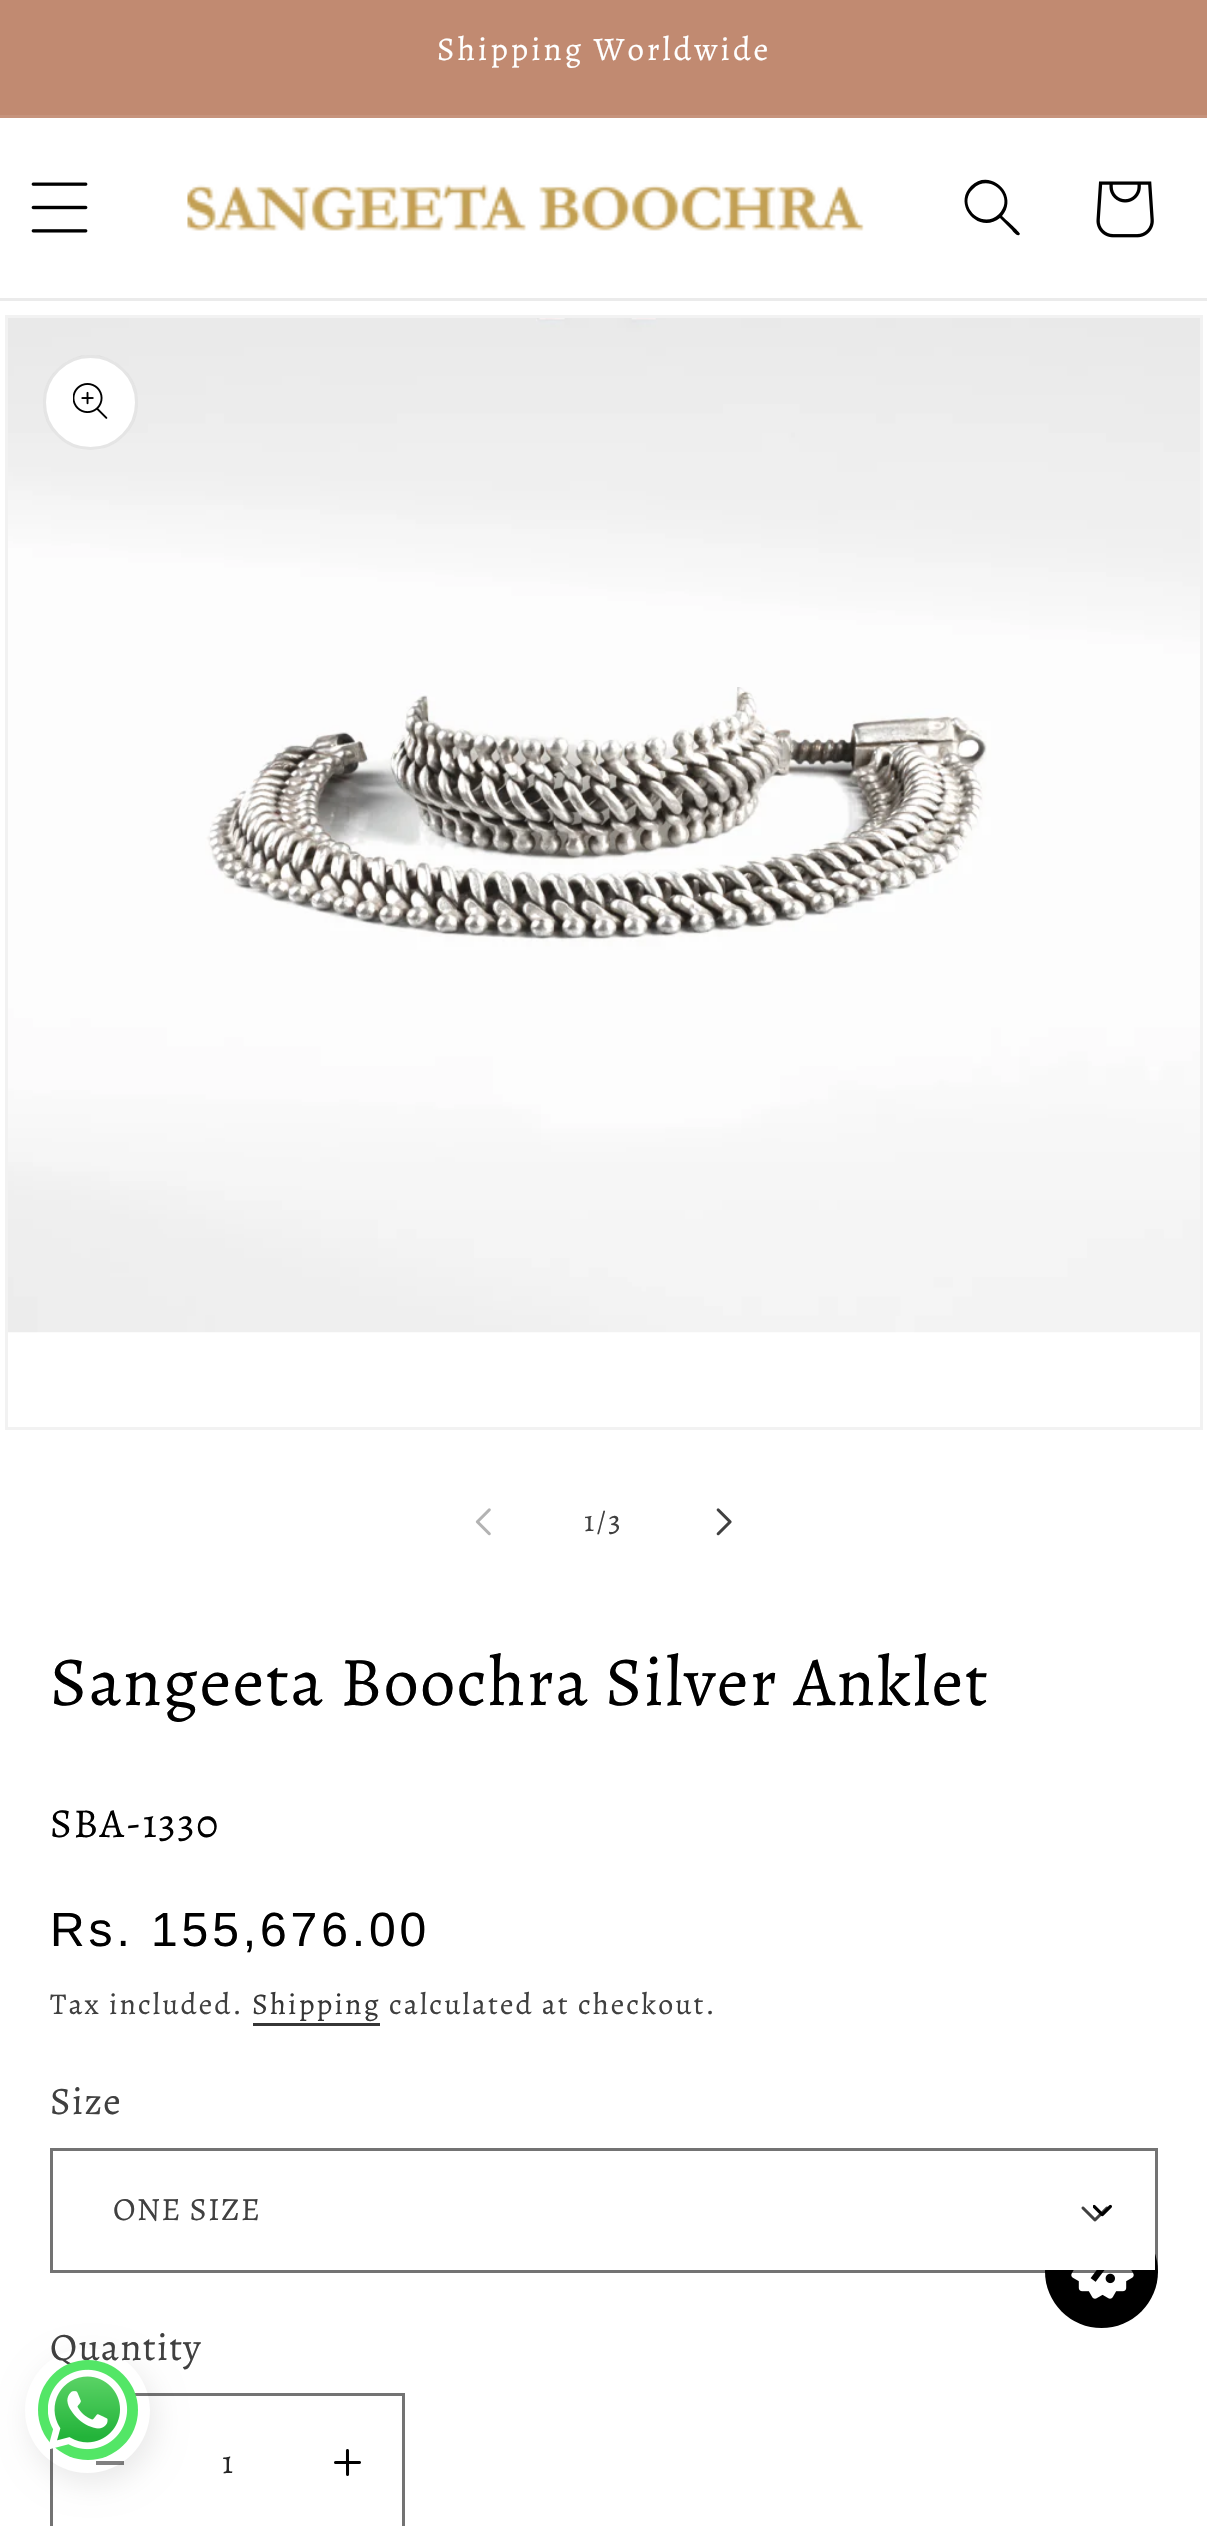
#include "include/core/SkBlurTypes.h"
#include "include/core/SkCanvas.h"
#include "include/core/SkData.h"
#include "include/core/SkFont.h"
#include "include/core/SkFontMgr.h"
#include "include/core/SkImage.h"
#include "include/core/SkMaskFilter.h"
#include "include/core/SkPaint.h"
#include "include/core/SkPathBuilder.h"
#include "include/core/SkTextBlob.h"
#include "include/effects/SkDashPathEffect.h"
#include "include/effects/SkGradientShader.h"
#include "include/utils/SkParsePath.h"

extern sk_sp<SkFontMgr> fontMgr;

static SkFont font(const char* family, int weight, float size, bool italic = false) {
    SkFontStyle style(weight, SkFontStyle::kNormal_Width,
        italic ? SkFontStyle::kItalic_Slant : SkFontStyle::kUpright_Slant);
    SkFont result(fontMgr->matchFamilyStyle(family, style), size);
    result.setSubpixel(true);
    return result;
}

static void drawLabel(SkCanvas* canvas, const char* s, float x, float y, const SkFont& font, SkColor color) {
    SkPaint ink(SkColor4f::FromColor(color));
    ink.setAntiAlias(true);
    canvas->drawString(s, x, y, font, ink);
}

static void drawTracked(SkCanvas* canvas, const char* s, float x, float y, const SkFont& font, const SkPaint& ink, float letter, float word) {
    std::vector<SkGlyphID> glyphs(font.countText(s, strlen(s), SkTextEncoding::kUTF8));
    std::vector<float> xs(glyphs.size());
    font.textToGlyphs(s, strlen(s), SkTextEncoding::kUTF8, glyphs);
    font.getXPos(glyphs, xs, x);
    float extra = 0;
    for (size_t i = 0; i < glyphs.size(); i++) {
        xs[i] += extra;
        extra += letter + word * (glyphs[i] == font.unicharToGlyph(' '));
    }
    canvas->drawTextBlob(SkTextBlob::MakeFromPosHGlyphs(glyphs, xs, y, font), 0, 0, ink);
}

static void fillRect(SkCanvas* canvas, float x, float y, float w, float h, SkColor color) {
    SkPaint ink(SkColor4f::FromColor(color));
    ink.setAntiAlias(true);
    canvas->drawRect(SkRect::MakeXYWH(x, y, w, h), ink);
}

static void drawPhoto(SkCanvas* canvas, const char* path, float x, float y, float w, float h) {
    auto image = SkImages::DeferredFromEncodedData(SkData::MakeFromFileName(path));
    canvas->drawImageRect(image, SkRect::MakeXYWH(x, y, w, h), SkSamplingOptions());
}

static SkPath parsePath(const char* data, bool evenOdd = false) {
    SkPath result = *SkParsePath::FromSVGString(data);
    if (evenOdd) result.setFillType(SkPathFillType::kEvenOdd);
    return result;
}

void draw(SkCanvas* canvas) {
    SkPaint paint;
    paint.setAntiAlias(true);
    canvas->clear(0xFFFFFFFF);
    fillRect(canvas, 0, 0, 1207, 115, 0xFFC18A71);
    fillRect(canvas, 0, 115, 1207, 3, 0xFFC6937C);
    SkFont font1 = font("Alegreya", 400, 33);
    paint.setColor(0xFFFFFFFF);
    drawTracked(canvas, "Shipping Worldwide", 437, 60, font1, paint, 3, 0);
    fillRect(canvas, 0, 298, 1207, 3, 0xFFEBEBEB);
    drawPhoto(canvas, "assets/img1.png", 31, 182, 57, 51);
    drawPhoto(canvas, "assets/img2.png", 187, 184, 677, 47);
    paint.setColor(0xFF000000);
    canvas->drawPath(parsePath("M999 214C982 231 956 205 973 189C990 172 1016 197 999 214ZM1000 218C979 235 952 205 971 186C990 167 1020 195 1002 216C1004 218 1020 232 1020 234L1019 235C1017 237 1012 230 1011 229Z", true), paint);
    drawPhoto(canvas, "assets/img3.png", 1096, 181, 58, 57);
    paint.setStroke(true);
    paint.setStrokeWidth(3);
    paint.setColor(0xFFF2F2F2);
    canvas->drawRect(SkRect::MakeXYWH(6.5f, 316.5f, 1195, 1112), paint);
    drawPhoto(canvas, "assets/img4.png", 8, 318, 1192, 1015);
    paint.setStroke(false);
    paint.setColor(0xFFFFFFFF);
    canvas->drawCircle(90.5f, 402.5f, 47.5f, paint);
    paint.setStroke(true);
    paint.setColor(0x1A000000);
    canvas->drawCircle(90.5f, 402.5f, 46, paint);
    drawPhoto(canvas, "assets/img5.png", 73, 383, 35, 36);
    drawPhoto(canvas, "assets/img6.png", 475, 1508, 16, 28);
    SkFont font2 = font("Alegreya", 400, 30);
    paint.setStroke(false);
    paint.setColor(0xFF404040);
    drawTracked(canvas, "1/3", 584, 1531, font2, paint, 2.1f, 0);
    drawPhoto(canvas, "assets/img7.png", 716, 1508, 16, 28);
    SkFont font3 = font("Alegreya", 400, 70);
    paint.setColor(0xFF000000);
    drawTracked(canvas, "Sangeeta Boochra Silver Anklet", 50, 1705, font3, paint, 1.65f, 0);
    SkFont font4 = font("Alegreya", 400, 41.25f);
    drawTracked(canvas, "SBA-1330", 50, 1837, font4, paint, 1.65f, 0);
    SkFont font5 = font("Liberation Sans", 400, 48);
    drawTracked(canvas, "Rs. 155,676.00", 50, 1946, font5, paint, 3.9f, 0);
    paint.setColor(0xFF404040);
    drawTracked(canvas, "Tax included.", 50, 2014, font2, paint, 2.1f, 0);
    paint.setColor(0xFF363636);
    drawTracked(canvas, "Shipping", 252, 2014, font2, paint, 2.1f, 0);
    fillRect(canvas, 253, 2023, 127, 3, 0xFF363636);
    paint.setColor(0xFF404040);
    drawTracked(canvas, "calculated at checkout.", 389, 2014, font2, paint, 2.1f, 0);
    SkFont font6 = font("Alegreya", 400, 39);
    drawTracked(canvas, "Size", 50, 2114, font6, paint, 1.25f, 0);
    paint.setColor(0xFF000000);
    canvas->drawCircle(1101.5f, 2271.5f, 56.5f, paint);
    fillRect(canvas, 1045, 2215, 110, 55, 0xFFFFFFFF);
    drawPhoto(canvas, "assets/img8.png", 1093, 2204, 19, 13);
    drawPhoto(canvas, "assets/img9.png", 1081, 2206, 27, 16);
    drawPhoto(canvas, "assets/img11.png", 1071, 2270, 63, 29);
    paint.setStroke(true);
    paint.setColor(0x8C000000);
    canvas->drawRect(SkRect::MakeXYWH(51.5f, 2149.5f, 1105, 122), paint);
    SkFont font7 = font("Alegreya", 400, 32.5f);
    paint.setStroke(false);
    paint.setColor(0xFF404040);
    drawTracked(canvas, "ONE SIZE", 113, 2220, font7, paint, 1.25f, 0);
    drawTracked(canvas, "Quantity", 50, 2360, font6, paint, 1.25f, 0);
    fillRect(canvas, 96, 2461, 28, 4, 0xFF808080);
    drawPhoto(canvas, "assets/img10.png", 334, 2449, 27, 27);
    paint.setStroke(true);
    paint.setColor(0xFF737373);
    canvas->drawRect(SkRect::MakeXYWH(51.5f, 2394.5f, 352, 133), paint);
    drawLabel(canvas, "1", 222, 2473, font7, 0xFF262626);
    canvas->save();
    canvas->clipPath(parsePath("M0 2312H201V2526H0ZM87.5 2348C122 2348 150 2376 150 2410.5C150 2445 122 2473 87.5 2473C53 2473 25 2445 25 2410.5C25 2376 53 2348 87.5 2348Z", true), true);
    paint.setStroke(false);
    paint.setColor(0x17000000);
    paint.setMaskFilter(SkMaskFilter::MakeBlur(kNormal_SkBlurStyle, 15));
    canvas->drawRoundRect(SkRect::MakeXYWH(30, 2358, 125, 125), 62.5f, 62.5f, paint);
    paint.setMaskFilter(nullptr);
    canvas->restore();
    paint.setColor(0xFF53E666);
    canvas->drawCircle(88, 2410, 50, paint);
    drawPhoto(canvas, "assets/img12.png", 48, 2369, 80, 81);
}
